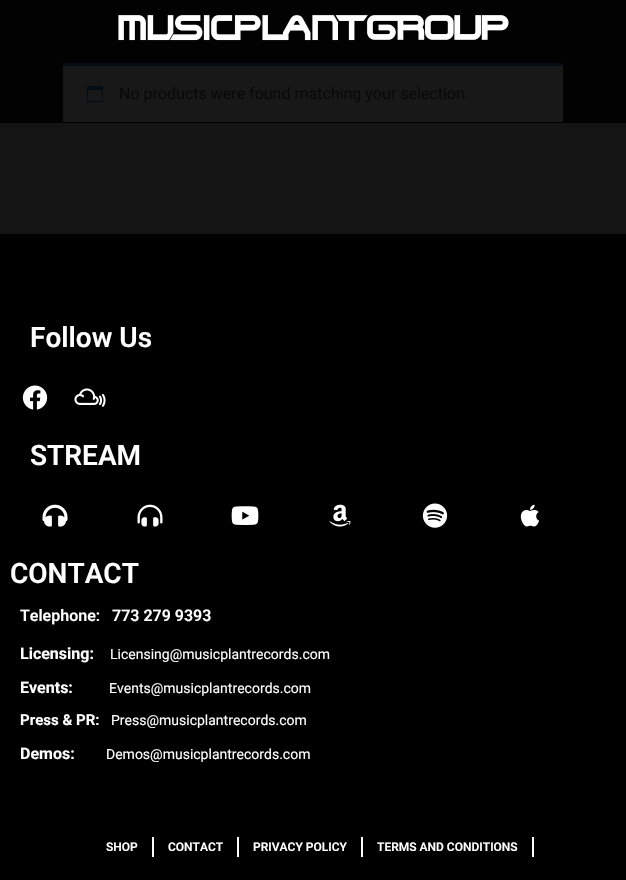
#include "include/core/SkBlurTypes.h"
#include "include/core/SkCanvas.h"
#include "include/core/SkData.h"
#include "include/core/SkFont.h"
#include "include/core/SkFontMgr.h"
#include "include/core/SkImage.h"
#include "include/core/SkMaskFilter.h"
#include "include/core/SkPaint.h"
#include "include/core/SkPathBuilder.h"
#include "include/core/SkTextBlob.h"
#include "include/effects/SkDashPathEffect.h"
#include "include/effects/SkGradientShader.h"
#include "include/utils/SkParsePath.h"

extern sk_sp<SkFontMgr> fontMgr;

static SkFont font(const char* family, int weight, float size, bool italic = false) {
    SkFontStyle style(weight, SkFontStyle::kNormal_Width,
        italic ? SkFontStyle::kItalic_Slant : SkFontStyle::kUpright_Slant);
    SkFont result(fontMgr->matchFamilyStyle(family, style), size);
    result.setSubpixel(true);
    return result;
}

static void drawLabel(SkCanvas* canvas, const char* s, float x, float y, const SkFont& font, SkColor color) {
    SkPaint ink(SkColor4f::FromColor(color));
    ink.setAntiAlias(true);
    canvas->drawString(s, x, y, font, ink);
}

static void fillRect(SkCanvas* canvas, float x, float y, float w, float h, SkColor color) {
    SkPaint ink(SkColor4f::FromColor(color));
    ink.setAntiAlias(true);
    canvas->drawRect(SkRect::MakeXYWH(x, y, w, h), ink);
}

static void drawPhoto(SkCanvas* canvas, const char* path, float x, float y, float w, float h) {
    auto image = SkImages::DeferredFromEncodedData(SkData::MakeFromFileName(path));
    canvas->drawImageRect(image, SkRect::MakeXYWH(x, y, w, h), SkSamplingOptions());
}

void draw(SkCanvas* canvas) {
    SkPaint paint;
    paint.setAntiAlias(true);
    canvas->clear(0xFF141414);
    fillRect(canvas, 0, 0, 626, 123, 0xFF020202);
    drawPhoto(canvas, "assets/img1.png", 118, 15, 391, 26);
    fillRect(canvas, 63, 66, 500, 56, 0xFF191819);
    fillRect(canvas, 63, 63, 500, 3, 0xFF030D13);
    drawPhoto(canvas, "assets/img2.png", 87, 86, 16, 16);
    SkFont font1 = font("Roboto", 400, 16);
    drawLabel(canvas, "No products were found matching your selection.", 119, 99, font1, 0xFF080808);
    fillRect(canvas, 0, 234, 626, 646, 0xFF000000);
    SkFont font2 = font("Roboto", 600, 28);
    drawLabel(canvas, "Follow Us", 30, 347, font2, 0xFFFFFFFF);
    drawPhoto(canvas, "assets/img3.png", 22, 385, 26, 25);
    drawPhoto(canvas, "assets/img4.png", 74, 388, 32, 19);
    drawLabel(canvas, "STREAM", 30, 465, font2, 0xFFFFFFFF);
    drawPhoto(canvas, "assets/img5.png", 42, 504, 26, 23);
    drawPhoto(canvas, "assets/img6.png", 137, 504, 26, 23);
    drawPhoto(canvas, "assets/img7.png", 231, 506, 28, 19);
    drawPhoto(canvas, "assets/img8.png", 329, 504, 22, 23);
    drawPhoto(canvas, "assets/img9.png", 422, 503, 26, 25);
    drawPhoto(canvas, "assets/img10.png", 520, 504, 20, 23);
    drawLabel(canvas, "CONTACT", 10, 583, font2, 0xFFFFFFFF);
    SkFont font3 = font("Roboto", 600, 16);
    drawLabel(canvas, "Telephone:   773 279 9393", 20, 621, font3, 0xFFFFFFFF);
    SkFont font4 = font("Roboto", 700, 16);
    drawLabel(canvas, "Licensing:", 20, 659, font4, 0xFFFFFFFF);
    SkFont font5 = font("Roboto", 400, 14);
    drawLabel(canvas, "Licensing@musicplantrecords.com", 110, 659, font5, 0xFFFFFFFF);
    drawLabel(canvas, "Events:", 20, 693, font4, 0xFFFFFFFF);
    drawLabel(canvas, "Events@musicplantrecords.com", 109, 693, font5, 0xFFFFFFFF);
    SkFont font6 = font("Roboto", 700, 15);
    drawLabel(canvas, "Press & PR:", 20, 725, font6, 0xFFFFFFFF);
    drawLabel(canvas, "Press@musicplantrecords.com", 111, 725, font5, 0xFFFFFFFF);
    drawLabel(canvas, "Demos:", 20, 759, font4, 0xFFFFFFFF);
    drawLabel(canvas, "Demos@musicplantrecords.com", 106, 759, font5, 0xFFFFFFFF);
    fillRect(canvas, 152, 837, 2, 20, 0xFFFFFFFF);
    SkFont font7 = font("Roboto", 600, 12);
    drawLabel(canvas, "SHOP", 106, 851, font7, 0xFFFFFFFF);
    fillRect(canvas, 237, 837, 2, 20, 0xFFFFFFFF);
    drawLabel(canvas, "CONTACT", 168, 851, font7, 0xFFFFFFFF);
    fillRect(canvas, 361, 837, 2, 20, 0xFFFFFFFF);
    drawLabel(canvas, "PRIVACY POLICY", 253, 851, font7, 0xFFFFFFFF);
    fillRect(canvas, 532, 837, 2, 20, 0xFFFFFFFF);
    drawLabel(canvas, "TERMS AND CONDITIONS", 377, 851, font7, 0xFFFFFFFF);
}
